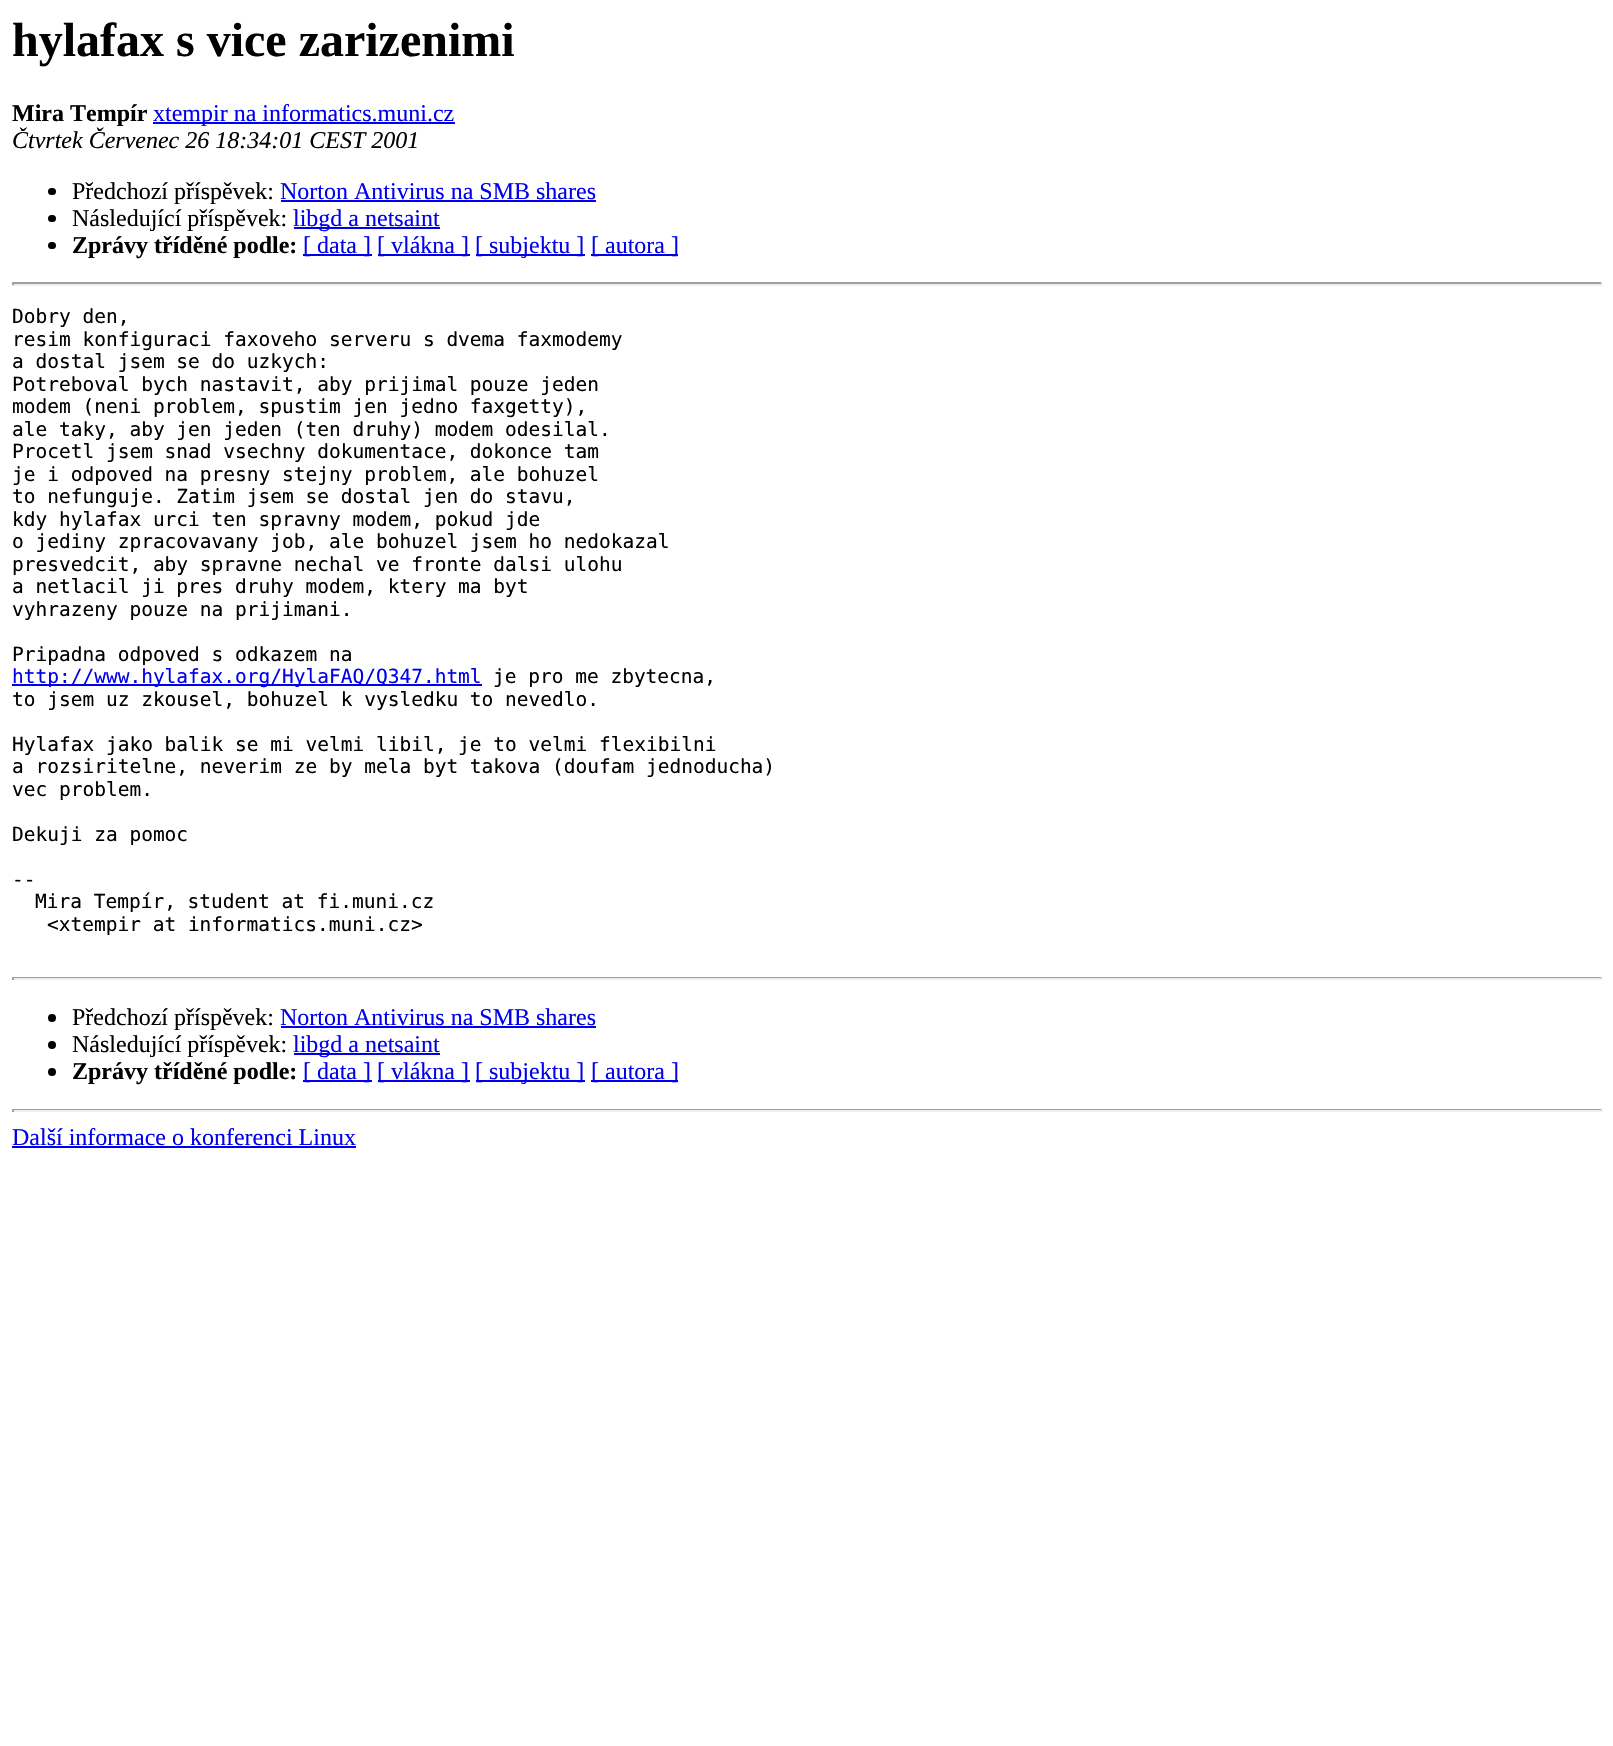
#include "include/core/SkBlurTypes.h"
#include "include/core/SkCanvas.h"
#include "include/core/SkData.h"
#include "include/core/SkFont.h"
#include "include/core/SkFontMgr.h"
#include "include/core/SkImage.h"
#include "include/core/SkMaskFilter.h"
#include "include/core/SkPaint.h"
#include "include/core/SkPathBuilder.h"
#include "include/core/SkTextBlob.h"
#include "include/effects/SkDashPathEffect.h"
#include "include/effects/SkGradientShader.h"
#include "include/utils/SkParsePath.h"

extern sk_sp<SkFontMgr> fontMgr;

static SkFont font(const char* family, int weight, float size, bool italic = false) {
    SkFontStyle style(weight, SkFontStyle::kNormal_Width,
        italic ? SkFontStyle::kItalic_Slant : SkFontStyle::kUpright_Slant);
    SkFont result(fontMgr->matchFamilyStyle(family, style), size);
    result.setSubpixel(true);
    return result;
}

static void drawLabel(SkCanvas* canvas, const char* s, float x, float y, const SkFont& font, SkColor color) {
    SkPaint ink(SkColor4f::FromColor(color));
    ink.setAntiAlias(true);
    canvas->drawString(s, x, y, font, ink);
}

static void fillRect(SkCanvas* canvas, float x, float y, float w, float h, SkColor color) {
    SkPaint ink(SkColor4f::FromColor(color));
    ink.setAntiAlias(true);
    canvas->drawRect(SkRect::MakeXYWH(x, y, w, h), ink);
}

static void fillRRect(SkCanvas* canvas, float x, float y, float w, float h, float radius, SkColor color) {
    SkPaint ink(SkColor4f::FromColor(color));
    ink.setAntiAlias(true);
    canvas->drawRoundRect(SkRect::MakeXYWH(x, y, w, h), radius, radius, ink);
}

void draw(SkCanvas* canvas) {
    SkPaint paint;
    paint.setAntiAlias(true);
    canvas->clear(0xFFFFFFFF);
    SkFont font1 = font("Liberation Serif", 700, 48);
    drawLabel(canvas, "hylafax s vice zarizenimi", 12, 56, font1, 0xFF000000);
    SkFont font2 = font("Liberation Serif", 700, 24);
    drawLabel(canvas, "Mira Tempír", 12, 121, font2, 0xFF000000);
    fillRect(canvas, 153, 122, 302, 2, 0xFF0000EE);
    SkFont font3 = font("Liberation Serif", 400, 24);
    drawLabel(canvas, "xtempir na informatics.muni.cz", 153, 121, font3, 0xFF0000EE);
    SkFont font4 = font("Liberation Serif", 400, 24, true);
    drawLabel(canvas, "Čtvrtek Červenec 26 18:34:01 CEST 2001", 12, 148, font4, 0xFF000000);
    fillRRect(canvas, 48, 188, 8, 7, 3.5f, 0xFF000000);
    drawLabel(canvas, "Předchozí příspěvek:", 72, 199, font3, 0xFF000000);
    drawLabel(canvas, "Norton Antivirus na SMB shares", 280, 199, font3, 0xFF0000EE);
    fillRect(canvas, 281, 200, 315, 2, 0xFF0000EE);
    fillRRect(canvas, 48, 215, 8, 7, 3.5f, 0xFF000000);
    drawLabel(canvas, "Následující příspěvek:", 72, 226, font3, 0xFF000000);
    fillRect(canvas, 294, 227, 146, 2, 0xFF0000EE);
    drawLabel(canvas, "libgd a netsaint", 293, 226, font3, 0xFF0000EE);
    fillRRect(canvas, 48, 242, 8, 7, 3.5f, 0xFF000000);
    drawLabel(canvas, "Zprávy tříděné podle:", 72, 253, font2, 0xFF000000);
    fillRect(canvas, 303, 254, 69, 2, 0xFF0000EE);
    drawLabel(canvas, "[ data ]", 303, 253, font3, 0xFF0000EE);
    fillRect(canvas, 378, 254, 92, 2, 0xFF0000EE);
    drawLabel(canvas, "[ vlákna ]", 377, 253, font3, 0xFF0000EE);
    fillRect(canvas, 476, 254, 109, 2, 0xFF0000EE);
    drawLabel(canvas, "[ subjektu ]", 475, 253, font3, 0xFF0000EE);
    fillRect(canvas, 591, 254, 87, 2, 0xFF0000EE);
    drawLabel(canvas, "[ autora ]", 591, 253, font3, 0xFF0000EE);
    fillRect(canvas, 12, 282, 1590, 2, 0xFF9F9F9F);
    fillRect(canvas, 1601, 282, 2, 3, 0xFFEEEEEE);
    fillRect(canvas, 12, 284, 1590, 2, 0xFFEEEEEE);
    fillRect(canvas, 12, 282, 2, 3, 0xFF9F9F9F);
    SkFont font5 = font("DejaVu Sans Mono", 400, 19.5f);
    drawLabel(canvas, "Dobry den,", 12, 323, font5, 0xFF000000);
    drawLabel(canvas, "resim konfiguraci faxoveho serveru s dvema faxmodemy", 12, 346, font5, 0xFF000000);
    drawLabel(canvas, "a dostal jsem se do uzkych:", 12, 368, font5, 0xFF000000);
    drawLabel(canvas, "Potreboval bych nastavit, aby prijimal pouze jeden", 12, 391, font5, 0xFF000000);
    drawLabel(canvas, "modem (neni problem, spustim jen jedno faxgetty),", 12, 413, font5, 0xFF000000);
    drawLabel(canvas, "ale taky, aby jen jeden (ten druhy) modem odesilal.", 12, 436, font5, 0xFF000000);
    drawLabel(canvas, "Procetl jsem snad vsechny dokumentace, dokonce tam", 12, 458, font5, 0xFF000000);
    drawLabel(canvas, "je i odpoved na presny stejny problem, ale bohuzel", 12, 481, font5, 0xFF000000);
    drawLabel(canvas, "to nefunguje. Zatim jsem se dostal jen do stavu,", 12, 503, font5, 0xFF000000);
    drawLabel(canvas, "kdy hylafax urci ten spravny modem, pokud jde", 12, 526, font5, 0xFF000000);
    drawLabel(canvas, "o jediny zpracovavany job, ale bohuzel jsem ho nedokazal", 12, 548, font5, 0xFF000000);
    drawLabel(canvas, "presvedcit, aby spravne nechal ve fronte dalsi ulohu", 12, 571, font5, 0xFF000000);
    drawLabel(canvas, "a netlacil ji pres druhy modem, ktery ma byt", 12, 593, font5, 0xFF000000);
    drawLabel(canvas, "vyhrazeny pouze na prijimani.", 12, 616, font5, 0xFF000000);
    drawLabel(canvas, "Pripadna odpoved s odkazem na", 12, 661, font5, 0xFF000000);
    fillRect(canvas, 12, 684, 470, 2, 0xFF0000EE);
    drawLabel(canvas, "http://www.hylafax.org/HylaFAQ/Q347.html", 12, 683, font5, 0xFF0000EE);
    drawLabel(canvas, "je pro me zbytecna,", 493, 683, font5, 0xFF000000);
    drawLabel(canvas, "to jsem uz zkousel, bohuzel k vysledku to nevedlo.", 12, 706, font5, 0xFF000000);
    drawLabel(canvas, "Hylafax jako balik se mi velmi libil, je to velmi flexibilni", 12, 751, font5, 0xFF000000);
    drawLabel(canvas, "a rozsiritelne, neverim ze by mela byt takova (doufam jednoducha)", 12, 773, font5, 0xFF000000);
    drawLabel(canvas, "vec problem.", 12, 796, font5, 0xFF000000);
    drawLabel(canvas, "Dekuji za pomoc", 12, 841, font5, 0xFF000000);
    drawLabel(canvas, "--", 12, 886, font5, 0xFF000000);
    drawLabel(canvas, "Mira Tempír, student at fi.muni.cz", 35, 908, font5, 0xFF000000);
    drawLabel(canvas, "<xtempir at informatics.muni.cz>", 47, 931, font5, 0xFF000000);
    fillRect(canvas, 12, 977, 1590, 1, 0xFF9F9F9F);
    fillRect(canvas, 1601, 977, 2, 3, 0xFFEEEEEE);
    fillRect(canvas, 12, 978, 1590, 2, 0xFFEEEEEE);
    fillRect(canvas, 12, 977, 2, 3, 0xFF9F9F9F);
    paint.setColor(0xFF000000);
    canvas->drawCircle(52, 1018, 4, paint);
    drawLabel(canvas, "Předchozí příspěvek:", 72, 1025, font3, 0xFF000000);
    drawLabel(canvas, "Norton Antivirus na SMB shares", 280, 1025, font3, 0xFF0000EE);
    fillRect(canvas, 281, 1026, 315, 2, 0xFF0000EE);
    canvas->drawCircle(52, 1045, 4, paint);
    drawLabel(canvas, "Následující příspěvek:", 72, 1052, font3, 0xFF000000);
    fillRect(canvas, 294, 1053, 146, 2, 0xFF0000EE);
    drawLabel(canvas, "libgd a netsaint", 293, 1052, font3, 0xFF0000EE);
    canvas->drawCircle(52, 1072, 4, paint);
    drawLabel(canvas, "Zprávy tříděné podle:", 72, 1079, font2, 0xFF000000);
    fillRect(canvas, 303, 1080, 69, 2, 0xFF0000EE);
    drawLabel(canvas, "[ data ]", 303, 1079, font3, 0xFF0000EE);
    fillRect(canvas, 378, 1080, 92, 2, 0xFF0000EE);
    drawLabel(canvas, "[ vlákna ]", 377, 1079, font3, 0xFF0000EE);
    fillRect(canvas, 476, 1080, 109, 2, 0xFF0000EE);
    drawLabel(canvas, "[ subjektu ]", 475, 1079, font3, 0xFF0000EE);
    fillRect(canvas, 591, 1080, 87, 2, 0xFF0000EE);
    drawLabel(canvas, "[ autora ]", 591, 1079, font3, 0xFF0000EE);
    fillRect(canvas, 12, 1109, 1590, 1, 0xFF9F9F9F);
    fillRect(canvas, 1601, 1109, 2, 3, 0xFFEEEEEE);
    fillRect(canvas, 12, 1110, 1590, 2, 0xFFEEEEEE);
    fillRect(canvas, 12, 1109, 2, 3, 0xFF9F9F9F);
    drawLabel(canvas, "Další informace o konferenci Linux", 12, 1145, font3, 0xFF0000EE);
    fillRect(canvas, 12, 1146, 344, 2, 0xFF0000EE);
}
